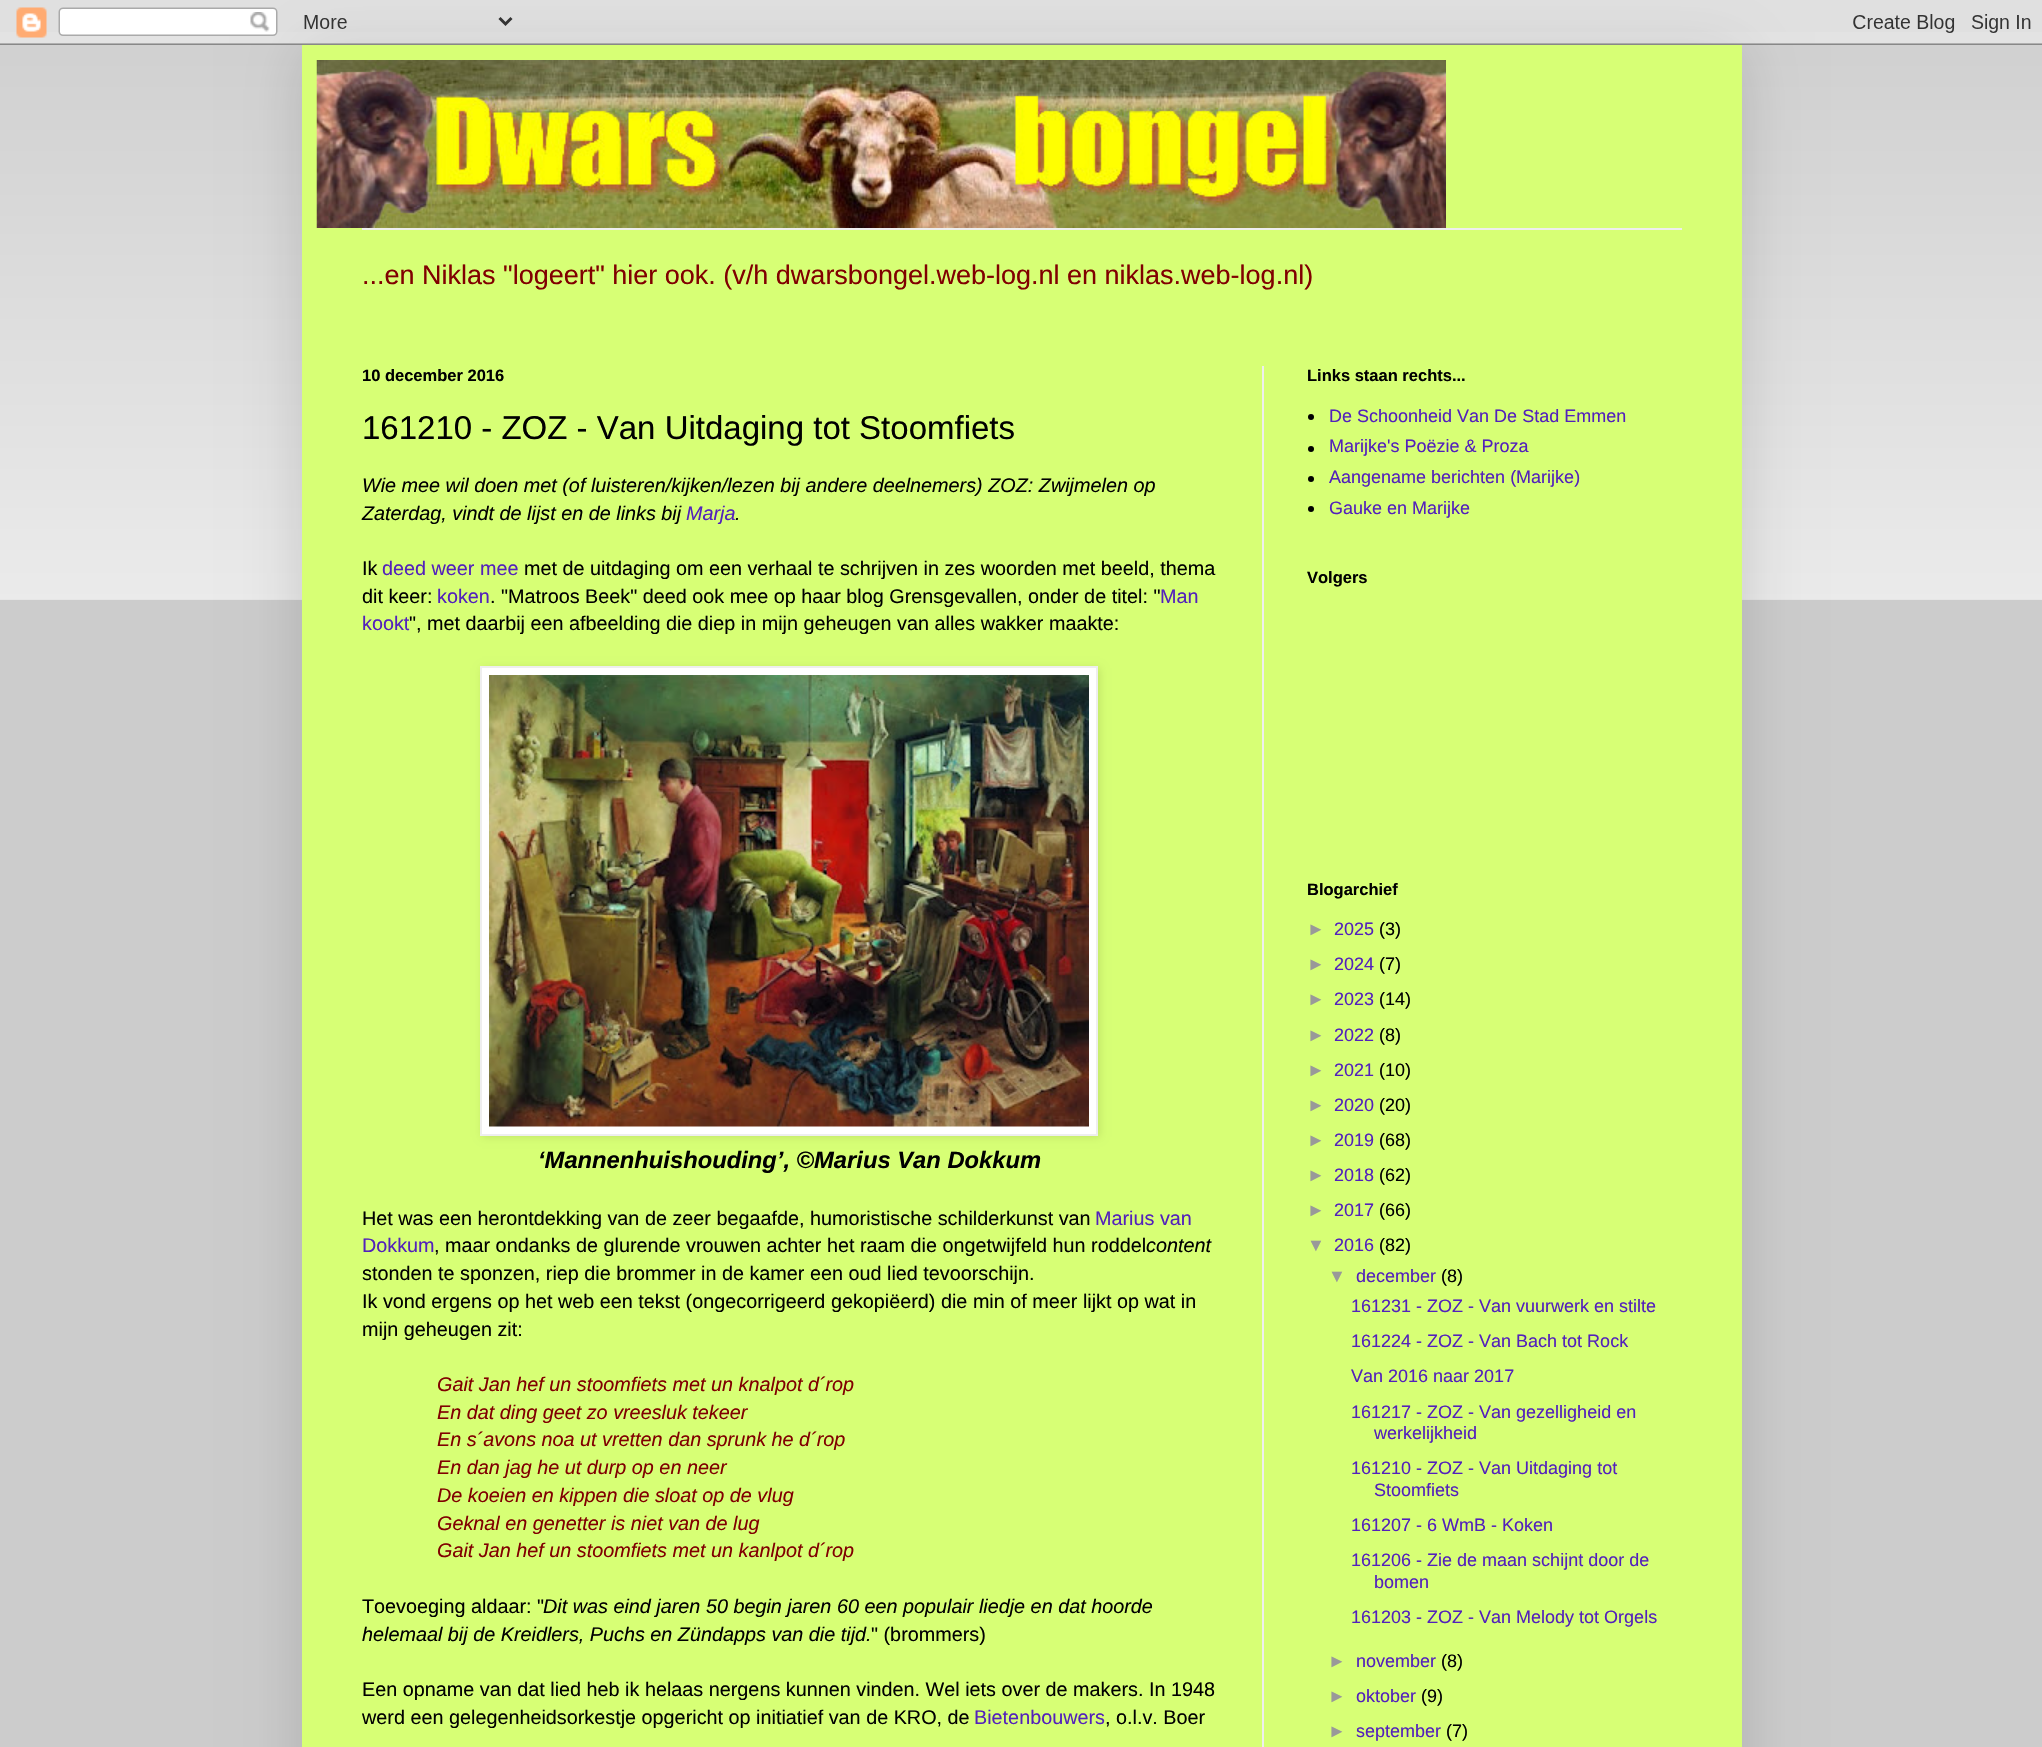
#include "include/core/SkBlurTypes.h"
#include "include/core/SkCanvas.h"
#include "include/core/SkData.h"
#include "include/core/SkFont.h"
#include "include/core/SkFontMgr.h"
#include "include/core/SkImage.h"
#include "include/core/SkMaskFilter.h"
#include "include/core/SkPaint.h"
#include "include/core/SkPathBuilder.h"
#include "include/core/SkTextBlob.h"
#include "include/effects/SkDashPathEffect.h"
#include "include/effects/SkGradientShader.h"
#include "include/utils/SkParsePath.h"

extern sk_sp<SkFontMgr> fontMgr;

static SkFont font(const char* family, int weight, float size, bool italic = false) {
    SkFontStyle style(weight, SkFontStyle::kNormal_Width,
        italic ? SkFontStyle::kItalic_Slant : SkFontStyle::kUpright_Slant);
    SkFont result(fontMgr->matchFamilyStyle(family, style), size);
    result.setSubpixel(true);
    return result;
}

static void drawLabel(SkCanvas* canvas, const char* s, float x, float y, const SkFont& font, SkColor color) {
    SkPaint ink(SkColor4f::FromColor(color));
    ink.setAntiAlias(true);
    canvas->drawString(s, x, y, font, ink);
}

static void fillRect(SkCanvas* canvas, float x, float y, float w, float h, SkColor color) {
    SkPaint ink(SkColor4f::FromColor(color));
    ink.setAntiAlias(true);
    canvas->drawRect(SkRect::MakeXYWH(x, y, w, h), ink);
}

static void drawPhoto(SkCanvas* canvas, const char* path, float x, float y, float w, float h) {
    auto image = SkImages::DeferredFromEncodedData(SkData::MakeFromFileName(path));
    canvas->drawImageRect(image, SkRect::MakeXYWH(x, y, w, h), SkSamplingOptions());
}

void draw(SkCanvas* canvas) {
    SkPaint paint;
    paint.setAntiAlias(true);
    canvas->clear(0xFFCCCCCC);
    drawPhoto(canvas, "assets/img2.png", 0, 32, 2042, 568);
    paint.setColor(0x26000000);
    paint.setMaskFilter(SkMaskFilter::MakeBlur(kNormal_SkBlurStyle, 30));
    canvas->drawRect(SkRect::MakeXYWH(302, 45, 1440, 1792), paint);
    paint.setMaskFilter(nullptr);
    drawPhoto(canvas, "assets/img1.png", 0, 0, 2042, 45);
    fillRect(canvas, 302, 45, 1440, 1702, 0xFFD7FF75);
    drawPhoto(canvas, "assets/img3.png", 316, 60, 1130, 168);
    fillRect(canvas, 362, 228, 1320, 2, 0xFFEEEEEE);
    SkFont font1 = font("Liberation Sans", 400, 27);
    drawLabel(canvas, "...en Niklas \"logeert\" hier ook. (v/h dwarsbongel.web-log.nl en niklas.web-log.nl)", 362, 284, font1, 0xFF800000);
    fillRect(canvas, 1262, 366, 2, 1381, 0xFFEEEEEE);
    SkFont font2 = font("Liberation Sans", 700, 16.5f);
    drawLabel(canvas, "10 december 2016", 362, 381, font2, 0xFF000000);
    SkFont font3 = font("Liberation Sans", 400, 33);
    drawLabel(canvas, "161210 - ZOZ - Van Uitdaging tot Stoomfiets", 362, 439, font3, 0xFF000000);
    SkFont font4 = font("Liberation Sans", 400, 19.8f, true);
    drawLabel(canvas, "Wie mee wil doen met (of luisteren/kijken/lezen bij andere deelnemers) ZOZ: Zwijmelen op", 362, 492, font4, 0xFF000000);
    drawLabel(canvas, "Zaterdag, vindt de lijst en de links bij", 362, 520, font4, 0xFF000000);
    drawLabel(canvas, "Marja", 686, 520, font4, 0xFF5321BB);
    drawLabel(canvas, ".", 735, 520, font4, 0xFF000000);
    SkFont font5 = font("Liberation Sans", 400, 19.8f);
    drawLabel(canvas, "Ik", 362, 575, font5, 0xFF000000);
    drawLabel(canvas, "deed weer mee", 382, 575, font5, 0xFF5321BB);
    drawLabel(canvas, "met de uitdaging om een verhaal te schrijven in zes woorden met beeld, thema", 524, 575, font5, 0xFF000000);
    drawLabel(canvas, "dit keer:", 362, 603, font5, 0xFF000000);
    drawLabel(canvas, "koken", 437, 603, font5, 0xFF5321BB);
    drawLabel(canvas, ". \"Matroos Beek\" deed ook mee op haar blog Grensgevallen, onder de titel: \"", 490, 603, font5, 0xFF000000);
    drawLabel(canvas, "Man", 1160, 603, font5, 0xFF5321BB);
    drawLabel(canvas, "kookt", 362, 630, font5, 0xFF5321BB);
    drawLabel(canvas, "\", met daarbij een afbeelding die diep in mijn geheugen van alles wakker maakte:", 409, 630, font5, 0xFF000000);
    paint.setColor(0x1A000000);
    paint.setMaskFilter(SkMaskFilter::MakeBlur(kNormal_SkBlurStyle, 4));
    canvas->drawRect(SkRect::MakeXYWH(482, 668, 618, 469), paint);
    paint.setMaskFilter(nullptr);
    paint.setColor(0xFFFFFFFF);
    canvas->drawRect(SkRect::MakeXYWH(481, 667, 616, 468), paint);
    paint.setStroke(true);
    paint.setStrokeWidth(2);
    paint.setColor(0xFFEEEEEE);
    canvas->drawRect(SkRect::MakeXYWH(481, 667, 616, 468), paint);
    drawPhoto(canvas, "assets/img4.png", 489, 675, 600, 452);
    SkFont font6 = font("Liberation Sans", 700, 23.75f, true);
    drawLabel(canvas, "‘Mannenhuishouding’, ©Marius Van Dokkum", 538, 1168, font6, 0xFF000000);
    drawLabel(canvas, "Het was een herontdekking van de zeer begaafde, humoristische schilderkunst van", 362, 1225, font5, 0xFF000000);
    drawLabel(canvas, "Marius van", 1095, 1225, font5, 0xFF5321BB);
    drawLabel(canvas, "Dokkum", 362, 1252, font5, 0xFF5321BB);
    drawLabel(canvas, ", maar ondanks de glurende vrouwen achter het raam die ongetwijfeld hun roddel", 434, 1252, font5, 0xFF000000);
    drawLabel(canvas, "content", 1146, 1252, font4, 0xFF000000);
    drawLabel(canvas, "stonden te sponzen, riep die brommer in de kamer een oud lied tevoorschijn.", 362, 1280, font5, 0xFF000000);
    drawLabel(canvas, "Ik vond ergens op het web een tekst (ongecorrigeerd gekopiëerd) die min of meer lijkt op wat in", 362, 1308, font5, 0xFF000000);
    drawLabel(canvas, "mijn geheugen zit:", 362, 1336, font5, 0xFF000000);
    drawLabel(canvas, "Gait Jan hef un stoomfiets met un knalpot d´rop", 437, 1391, font4, 0xFF800000);
    drawLabel(canvas, "En dat ding geet zo vreesluk tekeer", 437, 1419, font4, 0xFF800000);
    drawLabel(canvas, "En s´avons noa ut vretten dan sprunk he d´rop", 437, 1446, font4, 0xFF800000);
    drawLabel(canvas, "En dan jag he ut durp op en neer", 437, 1474, font4, 0xFF800000);
    drawLabel(canvas, "De koeien en kippen die sloat op de vlug", 437, 1502, font4, 0xFF800000);
    drawLabel(canvas, "Geknal en genetter is niet van de lug", 437, 1530, font4, 0xFF800000);
    drawLabel(canvas, "Gait Jan hef un stoomfiets met un kanlpot d´rop", 437, 1557, font4, 0xFF800000);
    drawLabel(canvas, "Toevoeging aldaar: \"", 362, 1613, font5, 0xFF000000);
    drawLabel(canvas, "Dit was eind jaren 50 begin jaren 60 een populair liedje en dat hoorde", 543, 1613, font4, 0xFF000000);
    drawLabel(canvas, "helemaal bij de Kreidlers, Puchs en Zündapps van die tijd.", 362, 1641, font4, 0xFF000000);
    drawLabel(canvas, "\" (brommers)", 871, 1641, font5, 0xFF000000);
    drawLabel(canvas, "Een opname van dat lied heb ik helaas nergens kunnen vinden. Wel iets over de makers. In 1948", 362, 1696, font5, 0xFF000000);
    drawLabel(canvas, "werd een gelegenheidsorkestje opgericht op initiatief van de KRO, de", 362, 1724, font5, 0xFF000000);
    drawLabel(canvas, "Bietenbouwers", 974, 1724, font5, 0xFF5321BB);
    drawLabel(canvas, ", o.l.v. Boer", 1105, 1724, font5, 0xFF000000);
    drawLabel(canvas, "Links staan rechts...", 1307, 381, font2, 0xFF000000);
    paint.setStroke(false);
    paint.setColor(0xFF000000);
    canvas->drawCircle(1311, 417, 3, paint);
    SkFont font7 = font("Liberation Sans", 400, 18);
    drawLabel(canvas, "De Schoonheid Van De Stad Emmen", 1329, 422, font7, 0xFF5321BB);
    canvas->drawCircle(1311, 449, 3, paint);
    drawLabel(canvas, "Marijke's Poëzie & Proza", 1329, 452, font7, 0xFF5321BB);
    canvas->drawCircle(1311, 479, 3, paint);
    drawLabel(canvas, "Aangename berichten (Marijke)", 1329, 483, font7, 0xFF5321BB);
    canvas->drawCircle(1311, 509, 3, paint);
    drawLabel(canvas, "Gauke en Marijke", 1329, 514, font7, 0xFF5321BB);
    drawLabel(canvas, "Volgers", 1307, 583, font2, 0xFF000000);
    drawLabel(canvas, "Blogarchief", 1307, 895, font2, 0xFF000000);
    drawLabel(canvas, "►", 1307, 935, font7, 0xFF999999);
    drawLabel(canvas, "2025", 1334, 935, font7, 0xFF5321BB);
    drawLabel(canvas, "(3)", 1379, 935, font7, 0xFF000000);
    drawLabel(canvas, "►", 1307, 970, font7, 0xFF999999);
    drawLabel(canvas, "2024", 1334, 970, font7, 0xFF5321BB);
    drawLabel(canvas, "(7)", 1379, 970, font7, 0xFF000000);
    drawLabel(canvas, "►", 1307, 1005, font7, 0xFF999999);
    drawLabel(canvas, "2023", 1334, 1005, font7, 0xFF5321BB);
    drawLabel(canvas, "(14)", 1379, 1005, font7, 0xFF000000);
    drawLabel(canvas, "►", 1307, 1041, font7, 0xFF999999);
    drawLabel(canvas, "2022", 1334, 1041, font7, 0xFF5321BB);
    drawLabel(canvas, "(8)", 1379, 1041, font7, 0xFF000000);
    drawLabel(canvas, "►", 1307, 1076, font7, 0xFF999999);
    drawLabel(canvas, "2021", 1334, 1076, font7, 0xFF5321BB);
    drawLabel(canvas, "(10)", 1379, 1076, font7, 0xFF000000);
    drawLabel(canvas, "►", 1307, 1111, font7, 0xFF999999);
    drawLabel(canvas, "2020", 1334, 1111, font7, 0xFF5321BB);
    drawLabel(canvas, "(20)", 1379, 1111, font7, 0xFF000000);
    drawLabel(canvas, "►", 1307, 1146, font7, 0xFF999999);
    drawLabel(canvas, "2019", 1334, 1146, font7, 0xFF5321BB);
    drawLabel(canvas, "(68)", 1379, 1146, font7, 0xFF000000);
    drawLabel(canvas, "►", 1307, 1181, font7, 0xFF999999);
    drawLabel(canvas, "2018", 1334, 1181, font7, 0xFF5321BB);
    drawLabel(canvas, "(62)", 1379, 1181, font7, 0xFF000000);
    drawLabel(canvas, "►", 1307, 1216, font7, 0xFF999999);
    drawLabel(canvas, "2017", 1334, 1216, font7, 0xFF5321BB);
    drawLabel(canvas, "(66)", 1379, 1216, font7, 0xFF000000);
    drawLabel(canvas, "▼", 1307, 1251, font7, 0xFF999999);
    drawLabel(canvas, "2016", 1334, 1251, font7, 0xFF5321BB);
    drawLabel(canvas, "(82)", 1379, 1251, font7, 0xFF000000);
    drawLabel(canvas, "▼", 1328, 1282, font7, 0xFF999999);
    drawLabel(canvas, "december", 1356, 1282, font7, 0xFF5321BB);
    drawLabel(canvas, "(8)", 1441, 1282, font7, 0xFF000000);
    drawLabel(canvas, "161231 - ZOZ - Van vuurwerk en stilte", 1351, 1312, font7, 0xFF5321BB);
    drawLabel(canvas, "161224 - ZOZ - Van Bach tot Rock", 1351, 1347, font7, 0xFF5321BB);
    drawLabel(canvas, "Van 2016 naar 2017", 1351, 1382, font7, 0xFF5321BB);
    drawLabel(canvas, "161217 - ZOZ - Van gezelligheid en", 1351, 1418, font7, 0xFF5321BB);
    drawLabel(canvas, "werkelijkheid", 1374, 1439, font7, 0xFF5321BB);
    drawLabel(canvas, "161210 - ZOZ - Van Uitdaging tot", 1351, 1474, font7, 0xFF5321BB);
    drawLabel(canvas, "Stoomfiets", 1374, 1496, font7, 0xFF5321BB);
    drawLabel(canvas, "161207 - 6 WmB - Koken", 1351, 1531, font7, 0xFF5321BB);
    drawLabel(canvas, "161206 - Zie de maan schijnt door de", 1351, 1566, font7, 0xFF5321BB);
    drawLabel(canvas, "bomen", 1374, 1588, font7, 0xFF5321BB);
    drawLabel(canvas, "161203 - ZOZ - Van Melody tot Orgels", 1351, 1623, font7, 0xFF5321BB);
    drawLabel(canvas, "►", 1328, 1667, font7, 0xFF999999);
    drawLabel(canvas, "november", 1356, 1667, font7, 0xFF5321BB);
    drawLabel(canvas, "(8)", 1441, 1667, font7, 0xFF000000);
    drawLabel(canvas, "►", 1328, 1702, font7, 0xFF999999);
    drawLabel(canvas, "oktober", 1356, 1702, font7, 0xFF5321BB);
    drawLabel(canvas, "(9)", 1421, 1702, font7, 0xFF000000);
    drawLabel(canvas, "►", 1328, 1737, font7, 0xFF999999);
    drawLabel(canvas, "september", 1356, 1737, font7, 0xFF5321BB);
    drawLabel(canvas, "(7)", 1446, 1737, font7, 0xFF000000);
}
